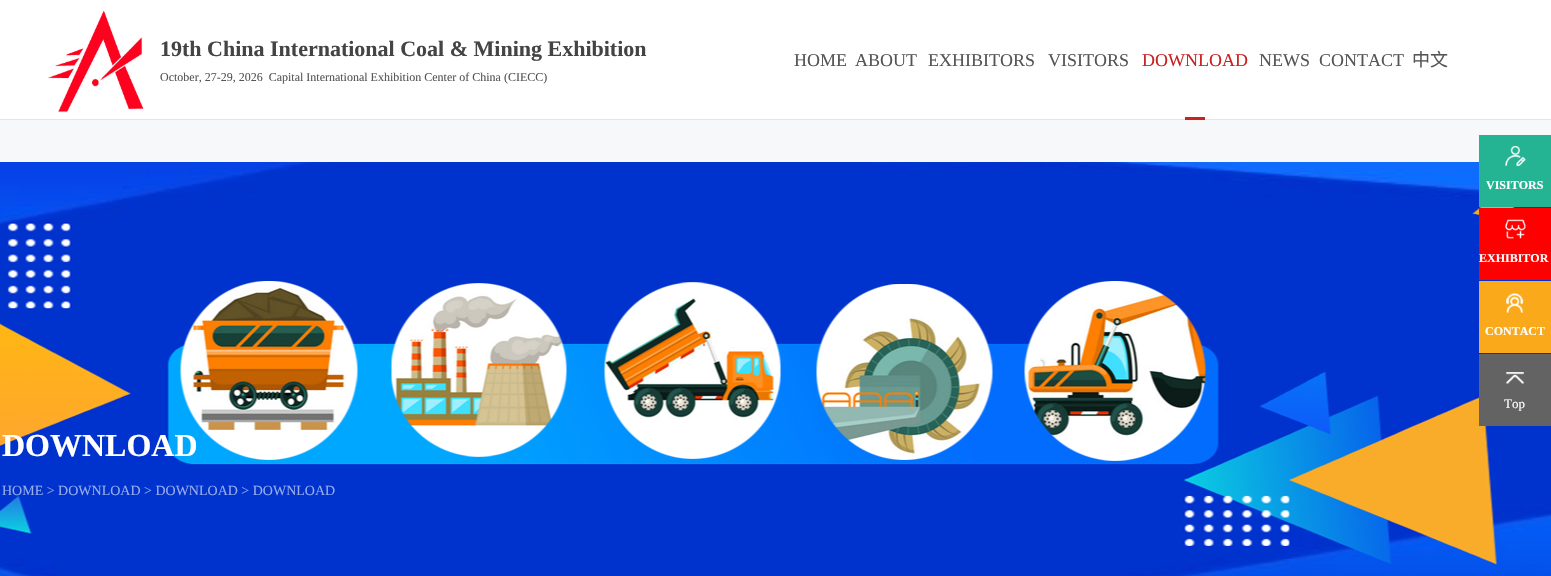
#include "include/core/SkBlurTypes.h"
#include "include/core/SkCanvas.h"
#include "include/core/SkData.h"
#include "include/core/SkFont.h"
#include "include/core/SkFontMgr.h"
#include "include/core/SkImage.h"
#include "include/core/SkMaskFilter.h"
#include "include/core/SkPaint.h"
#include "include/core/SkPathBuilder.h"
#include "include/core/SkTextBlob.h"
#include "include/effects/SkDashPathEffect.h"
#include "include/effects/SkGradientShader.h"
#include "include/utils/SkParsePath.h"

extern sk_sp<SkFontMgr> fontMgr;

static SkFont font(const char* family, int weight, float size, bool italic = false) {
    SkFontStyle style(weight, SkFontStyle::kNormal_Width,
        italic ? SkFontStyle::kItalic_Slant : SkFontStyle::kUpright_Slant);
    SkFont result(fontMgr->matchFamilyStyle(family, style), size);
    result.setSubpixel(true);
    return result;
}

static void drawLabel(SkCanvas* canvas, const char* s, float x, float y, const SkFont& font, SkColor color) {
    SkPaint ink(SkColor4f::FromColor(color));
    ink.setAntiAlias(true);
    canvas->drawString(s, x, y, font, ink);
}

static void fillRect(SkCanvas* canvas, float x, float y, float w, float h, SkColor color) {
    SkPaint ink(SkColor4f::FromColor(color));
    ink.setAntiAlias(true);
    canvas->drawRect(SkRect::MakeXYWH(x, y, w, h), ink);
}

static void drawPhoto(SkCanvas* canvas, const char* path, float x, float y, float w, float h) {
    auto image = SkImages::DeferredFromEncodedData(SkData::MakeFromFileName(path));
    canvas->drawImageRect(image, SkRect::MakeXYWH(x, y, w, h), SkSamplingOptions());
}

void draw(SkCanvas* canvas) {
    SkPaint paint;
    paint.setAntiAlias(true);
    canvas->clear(0xFFF7F8FA);
    fillRect(canvas, 0, 0, 1551, 119, 0xFFFFFFFF);
    fillRect(canvas, 0, 119, 1551, 1, 0xFFE6E6E6);
    drawPhoto(canvas, "assets/img1.png", 47, 10, 97, 103);
    SkFont font1 = font("Liberation Serif", 700, 22);
    drawLabel(canvas, "19th China International Coal & Mining Exhibition", 160, 56, font1, 0xFF444444);
    SkFont font2 = font("Liberation Serif", 400, 12);
    drawLabel(canvas, "October, 27-29, 2026  Capital International Exhibition Center of China (CIECC)", 160, 81, font2, 0xFF555555);
    SkFont font3 = font("Liberation Serif", 400, 18);
    drawLabel(canvas, "HOME", 794, 66, font3, 0xFF555555);
    drawLabel(canvas, "ABOUT", 855, 66, font3, 0xFF555555);
    drawLabel(canvas, "EXHIBITORS", 928, 66, font3, 0xFF555555);
    drawLabel(canvas, "VISITORS", 1048, 66, font3, 0xFF555555);
    drawLabel(canvas, "DOWNLOAD", 1142, 66, font3, 0xFFCA2121);
    fillRect(canvas, 1185, 117, 20, 3, 0xFFCA2121);
    drawLabel(canvas, "NEWS", 1259, 66, font3, 0xFF555555);
    drawLabel(canvas, "CONTACT", 1319, 66, font3, 0xFF555555);
    SkFont font4 = font("Noto Sans CJK SC", 400, 18);
    drawLabel(canvas, "中文", 1412, 66, font4, 0xFF555555);
    drawPhoto(canvas, "assets/img2.png", 0, 162, 1551, 414);
    SkFont font5 = font("Liberation Serif", 700, 32);
    drawLabel(canvas, "DOWNLOAD", 2, 456, font5, 0xFFFFFFFF);
    SkFont font6 = font("Liberation Serif", 400, 14);
    drawLabel(canvas, "HOME > DOWNLOAD > DOWNLOAD > DOWNLOAD", 2, 495, font6, 0xFF99ADEB);
    fillRect(canvas, 1479, 135, 72, 72, 0xFF25B493);
    drawPhoto(canvas, "assets/img3.png", 1505, 146, 21, 20);
    SkFont font7 = font("Liberation Serif", 700, 12);
    drawLabel(canvas, "VISITORS", 1486, 189, font7, 0xFFFFFFFF);
    fillRect(canvas, 1479, 208, 72, 72, 0xFFFF0000);
    drawPhoto(canvas, "assets/img4.png", 1505, 219, 21, 20);
    drawLabel(canvas, "EXHIBITOR", 1479, 262, font7, 0xFFFFFFFF);
    fillRect(canvas, 1479, 281, 72, 72, 0xFFFAA91B);
    drawPhoto(canvas, "assets/img5.png", 1506, 293, 18, 20);
    drawLabel(canvas, "CONTACT", 1485, 335, font7, 0xFFFFFFFF);
    fillRect(canvas, 1479, 354, 72, 72, 0xFF636363);
    drawPhoto(canvas, "assets/img6.png", 1506, 372, 18, 12);
    SkFont font8 = font("Liberation Serif", 400, 13);
    drawLabel(canvas, "Top", 1504, 408, font8, 0xFFFFFFFF);
}
